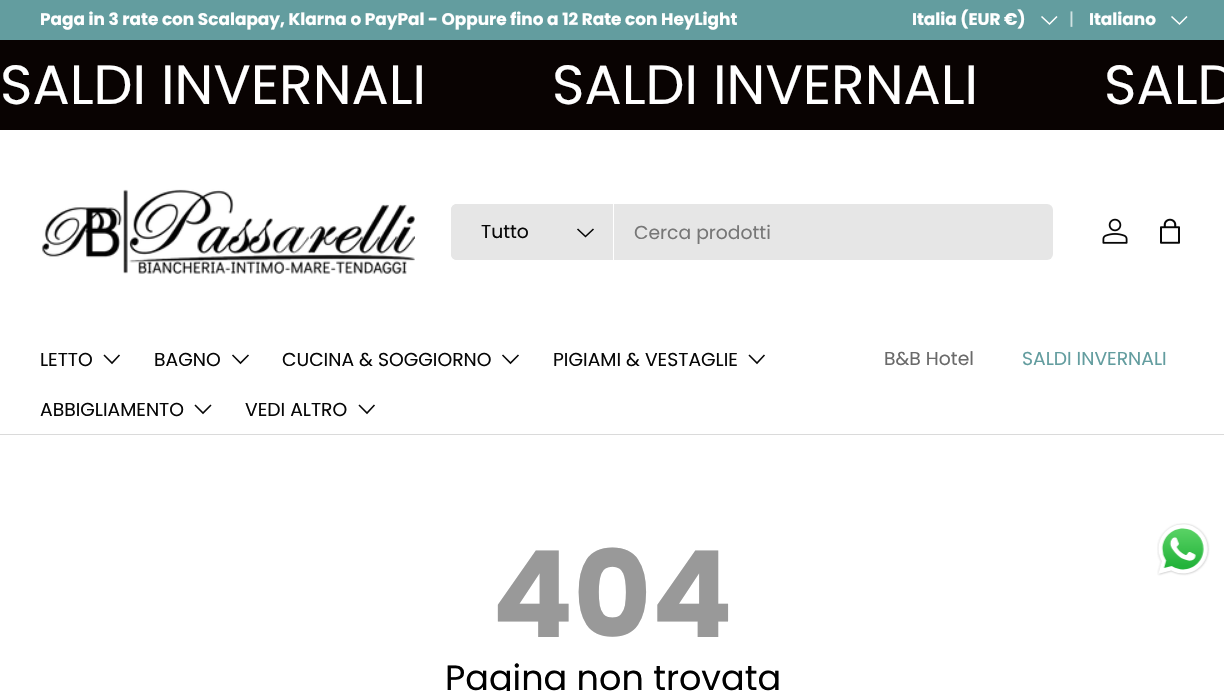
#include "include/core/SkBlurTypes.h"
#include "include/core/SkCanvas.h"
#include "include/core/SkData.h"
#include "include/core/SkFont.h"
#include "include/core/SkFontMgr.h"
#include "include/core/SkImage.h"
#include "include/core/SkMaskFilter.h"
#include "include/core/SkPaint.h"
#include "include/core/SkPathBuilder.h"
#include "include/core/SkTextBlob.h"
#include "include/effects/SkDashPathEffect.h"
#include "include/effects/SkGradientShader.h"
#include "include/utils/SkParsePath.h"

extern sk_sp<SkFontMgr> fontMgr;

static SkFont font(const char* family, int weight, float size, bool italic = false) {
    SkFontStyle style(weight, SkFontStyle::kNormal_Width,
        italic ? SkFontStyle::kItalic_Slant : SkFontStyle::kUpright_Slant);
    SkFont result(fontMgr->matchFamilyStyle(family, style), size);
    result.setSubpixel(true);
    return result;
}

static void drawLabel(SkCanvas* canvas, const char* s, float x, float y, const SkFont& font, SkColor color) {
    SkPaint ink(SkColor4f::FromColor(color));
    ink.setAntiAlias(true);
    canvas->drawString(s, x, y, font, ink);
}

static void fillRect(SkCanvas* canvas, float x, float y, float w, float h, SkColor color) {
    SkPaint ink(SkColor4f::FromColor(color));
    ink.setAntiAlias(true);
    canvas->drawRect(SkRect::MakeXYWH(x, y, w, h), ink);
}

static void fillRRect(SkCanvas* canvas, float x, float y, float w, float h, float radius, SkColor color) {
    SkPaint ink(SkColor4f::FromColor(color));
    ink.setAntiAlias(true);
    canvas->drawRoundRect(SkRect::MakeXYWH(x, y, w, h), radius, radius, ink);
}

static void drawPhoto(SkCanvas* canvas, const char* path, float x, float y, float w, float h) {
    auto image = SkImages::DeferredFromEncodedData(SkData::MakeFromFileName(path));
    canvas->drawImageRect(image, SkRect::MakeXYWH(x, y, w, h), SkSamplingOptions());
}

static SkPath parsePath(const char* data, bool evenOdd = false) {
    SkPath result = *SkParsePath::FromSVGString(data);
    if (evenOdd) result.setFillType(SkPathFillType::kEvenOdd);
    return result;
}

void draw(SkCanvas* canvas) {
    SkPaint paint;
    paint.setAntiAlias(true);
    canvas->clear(0xFFFFFFFF);
    fillRect(canvas, 0, 0, 1224, 40, 0xFF639D9F);
    SkFont font1 = font("Poppins", 700, 16.9f);
    drawLabel(canvas, "Paga in 3 rate con Scalapay, Klarna o PayPal - Oppure fino a 12 Rate con HeyLight", 40, 25, font1, 0xFFFFFFFF);
    drawLabel(canvas, "Italia (EUR €)", 912, 25, font1, 0xFFFFFFFF);
    paint.setStroke(true);
    paint.setStrokeWidth(1.6f);
    paint.setColor(0xFFFFFFFF);
    canvas->drawPath(parsePath("M1057 16.5L1049.5 24L1041.5 16.5"), paint);
    SkFont font2 = font("Poppins", 400, 16.9f);
    drawLabel(canvas, "|", 1069, 25, font2, 0xFFD0E2E2);
    drawLabel(canvas, "Italiano", 1089, 25, font1, 0xFFFFFFFF);
    canvas->drawPath(parsePath("M1187 16.5L1179.5 24L1171.5 16.5"), paint);
    fillRect(canvas, 0, 40, 1224, 90, 0xFF090302);
    SkFont font3 = font("Poppins", 400, 55.25f);
    drawLabel(canvas, "SALDI INVERNALI", 0, 104, font3, 0xFFFFFFFF);
    drawLabel(canvas, "SALDI INVERNALI", 552, 104, font3, 0xFFFFFFFF);
    drawLabel(canvas, "SALD", 1104, 104, font3, 0xFFFFFFFF);
    fillRect(canvas, 0, 434, 1224, 1, 0xFFDADADA);
    drawPhoto(canvas, "assets/img1.png", 41, 189, 374, 85);
    fillRRect(canvas, 451, 204, 602, 56, 6, 0xFFE6E6E6);
    paint.setStroke(false);
    paint.setColor(0xFFE6E6E6);
    canvas->drawPath(parsePath("M457 204H614V260H457C453.5 260 451 257.5 451 254V210C451 206.5 453.5 204 457 204Z"), paint);
    fillRect(canvas, 613, 204, 1, 56, 0xFFFFFFFF);
    SkFont font4 = font("Poppins", 400, 18.75f);
    drawLabel(canvas, "Tutto", 481, 238, font4, 0xFF070707);
    paint.setStroke(true);
    paint.setColor(0xFF070707);
    canvas->drawPath(parsePath("M593.5 229L585.5 236.5L577.5 229"), paint);
    drawLabel(canvas, "Cerca prodotti", 634, 239, font4, 0xFF777777);
    drawPhoto(canvas, "assets/img2.png", 1102, 218, 26, 26);
    drawPhoto(canvas, "assets/img3.png", 1160, 218, 20, 26);
    drawLabel(canvas, "LETTO", 40, 366, font4, 0xFF070707);
    canvas->drawPath(parsePath("M119.5 355L112 363L104 355"), paint);
    drawLabel(canvas, "BAGNO", 154, 366, font4, 0xFF070707);
    canvas->drawPath(parsePath("M248.5 355L240.5 363L232.5 355"), paint);
    drawLabel(canvas, "CUCINA & SOGGIORNO", 282, 366, font4, 0xFF070707);
    canvas->drawPath(parsePath("M518.5 355L510.5 363L502.5 355"), paint);
    drawLabel(canvas, "PIGIAMI & VESTAGLIE", 553, 366, font4, 0xFF070707);
    canvas->drawPath(parsePath("M764.5 355L757 363L749 355"), paint);
    drawLabel(canvas, "ABBIGLIAMENTO", 40, 416, font4, 0xFF070707);
    canvas->drawPath(parsePath("M211 405L203 413L195 405"), paint);
    drawLabel(canvas, "VEDI ALTRO", 245, 416, font4, 0xFF070707);
    canvas->drawPath(parsePath("M374.5 405L367 413L359 405"), paint);
    drawLabel(canvas, "B&B Hotel", 884, 365, font4, 0xFF6A6A6A);
    drawLabel(canvas, "SALDI INVERNALI", 1022, 365, font4, 0xFF639D9F);
    SkFont font5 = font("Poppins", 700, 120);
    drawLabel(canvas, "404", 492, 637, font5, 0xFF999999);
    SkFont font6 = font("Poppins", 400, 35);
    drawLabel(canvas, "Pagina non trovata", 445, 690, font6, 0xFF000000);
    drawPhoto(canvas, "assets/img4.png", 1157, 523, 53, 53);
}
